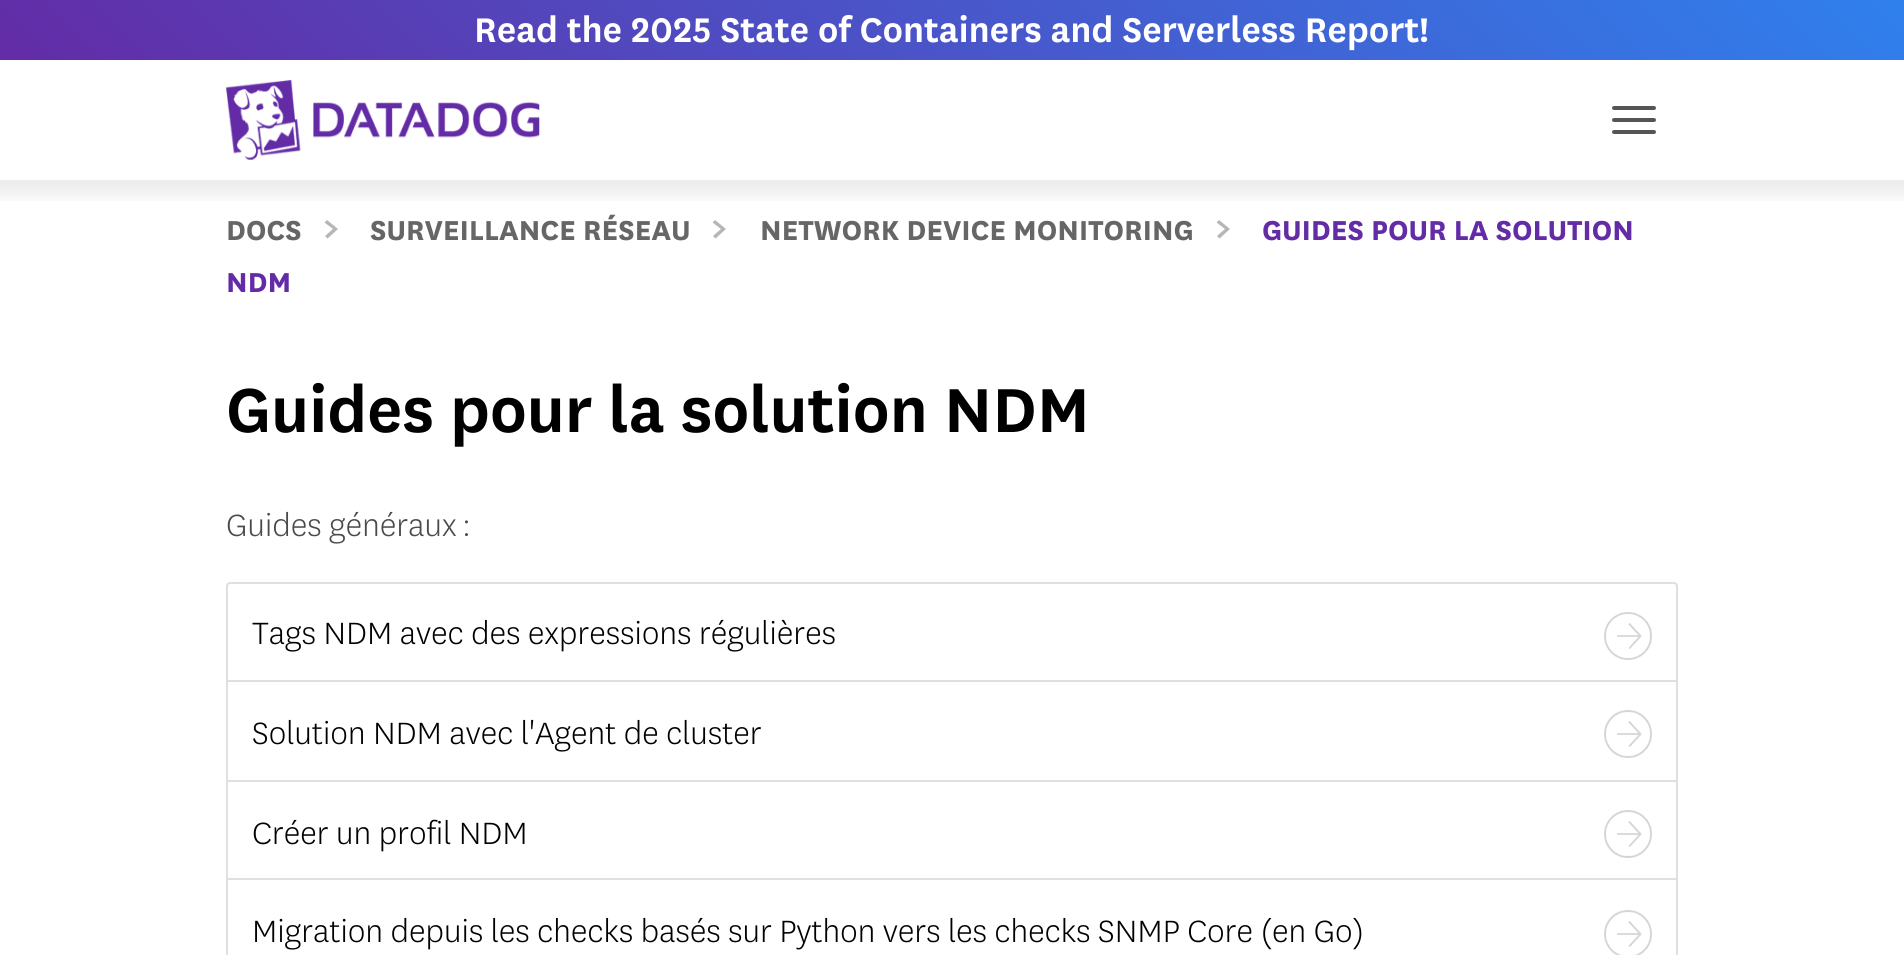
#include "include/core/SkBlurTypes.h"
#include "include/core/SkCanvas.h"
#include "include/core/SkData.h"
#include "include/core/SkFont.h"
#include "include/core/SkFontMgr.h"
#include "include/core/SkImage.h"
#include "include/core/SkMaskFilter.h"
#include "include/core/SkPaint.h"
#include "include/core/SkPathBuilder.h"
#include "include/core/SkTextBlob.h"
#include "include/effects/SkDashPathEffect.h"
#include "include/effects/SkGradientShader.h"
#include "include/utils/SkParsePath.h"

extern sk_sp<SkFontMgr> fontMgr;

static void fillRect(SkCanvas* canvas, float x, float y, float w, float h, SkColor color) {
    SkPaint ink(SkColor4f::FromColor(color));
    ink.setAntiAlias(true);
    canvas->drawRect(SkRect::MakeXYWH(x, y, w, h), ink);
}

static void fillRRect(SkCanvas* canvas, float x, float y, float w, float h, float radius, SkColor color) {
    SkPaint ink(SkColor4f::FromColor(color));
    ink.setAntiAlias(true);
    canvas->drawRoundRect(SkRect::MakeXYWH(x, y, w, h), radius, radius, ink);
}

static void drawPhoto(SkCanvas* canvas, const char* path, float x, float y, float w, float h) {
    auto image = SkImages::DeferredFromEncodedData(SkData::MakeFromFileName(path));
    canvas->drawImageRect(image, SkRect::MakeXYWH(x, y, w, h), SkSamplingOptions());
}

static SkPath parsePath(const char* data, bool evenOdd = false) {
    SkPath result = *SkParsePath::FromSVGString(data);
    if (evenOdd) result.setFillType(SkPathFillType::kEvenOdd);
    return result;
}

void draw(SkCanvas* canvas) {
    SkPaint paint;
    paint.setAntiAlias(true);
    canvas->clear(0xFFFFFFFF);
    drawPhoto(canvas, "assets/img3.png", 228, 220, 73, 21);
    paint.setColor(0xFFB6B6B6);
    canvas->drawPath(parsePath("M324.5 222.5L327 220L338 229L327.5 238.5L325 236L333 229Z"), paint);
    drawPhoto(canvas, "assets/img4.png", 370, 214, 319, 27);
    canvas->drawPath(parsePath("M712.5 222.5L715 220L726 229L715.5 238.5L713 236L721 229Z"), paint);
    drawPhoto(canvas, "assets/img5.png", 762, 220, 430, 21);
    canvas->drawPath(parsePath("M1216.5 222.5L1219 220L1230 229L1219.5 238.5L1217 236L1225 229Z"), paint);
    drawPhoto(canvas, "assets/img6.png", 1263, 220, 369, 21);
    canvas->save();
    canvas->clipRect(SkRect::MakeXYWH(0, 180, 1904, 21));
    paint.setColor(0x12000000);
    paint.setMaskFilter(SkMaskFilter::MakeBlur(kNormal_SkBlurStyle, 8));
    canvas->drawRect(SkRect::MakeXYWH(-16, 44, 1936, 152), paint);
    paint.setMaskFilter(nullptr);
    canvas->restore();
    {
        const SkColor colors[] = {0xFF632CA6, 0xFF2F80ED};
        const float stops[] = {0, 1};
        const SkPoint ends[] = {{461, 521}, {1443, -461}};
        paint.setShader(SkGradientShader::MakeLinear(ends, colors, stops, 2, SkTileMode::kClamp));
        paint.setAlpha(255);
    }
    canvas->drawRect(SkRect::MakeXYWH(0, 0, 1904, 60), paint);
    drawPhoto(canvas, "assets/img1.png", 477, 14, 951, 37);
    drawPhoto(canvas, "assets/img2.png", 226, 80, 314, 80);
    fillRRect(canvas, 1612, 106, 44, 4, 2, 0xFF555555);
    fillRRect(canvas, 1612, 118, 44, 4, 2, 0xFF555555);
    fillRRect(canvas, 1612, 130, 44, 4, 2, 0xFF555555);
    drawPhoto(canvas, "assets/img7.png", 228, 273, 61, 19);
    drawPhoto(canvas, "assets/img8.png", 229, 382, 856, 65);
    drawPhoto(canvas, "assets/img9.png", 227, 511, 241, 33);
    paint.setStroke(true);
    paint.setStrokeWidth(2);
    paint.setShader(nullptr);
    paint.setColor(0xFFDFDFDF);
    canvas->drawPath(parsePath("M230 583H1674C1675.5 583 1677 584.5 1677 586V681H227V586C227 584.5 228.5 583 230 583Z"), paint);
    drawPhoto(canvas, "assets/img10.png", 252, 619, 583, 33);
    drawPhoto(canvas, "assets/img11.png", 1604, 612, 48, 48);
    paint.setStroke(false);
    canvas->drawPath(parsePath("M1678 682V782L1676 780V682Z"), paint);
    paint.setColor(0x1F000000);
    canvas->drawPath(parsePath("M1678 782H226L228 780H1676Z"), paint);
    canvas->drawPath(parsePath("M226 782V682H228V780Z"), paint);
    drawPhoto(canvas, "assets/img12.png", 253, 719, 508, 33);
    drawPhoto(canvas, "assets/img11.png", 1604, 710, 48, 48);
    paint.setColor(0xFFDFDFDF);
    canvas->drawPath(parsePath("M1678 782V880L1676 878V782Z"), paint);
    paint.setColor(0x1F000000);
    canvas->drawPath(parsePath("M1678 880H226L228 878H1676Z"), paint);
    canvas->drawPath(parsePath("M226 880V782H228V878Z"), paint);
    drawPhoto(canvas, "assets/img13.png", 253, 819, 272, 33);
    drawPhoto(canvas, "assets/img11.png", 1604, 810, 48, 48);
    fillRect(canvas, 1676, 880, 2, 75, 0xFFDFDFDF);
    fillRect(canvas, 226, 880, 2, 75, 0xFFDFDFDF);
    drawPhoto(canvas, "assets/img14.png", 255, 917, 1107, 33);
    drawPhoto(canvas, "assets/img15.png", 1604, 910, 48, 45);
}
